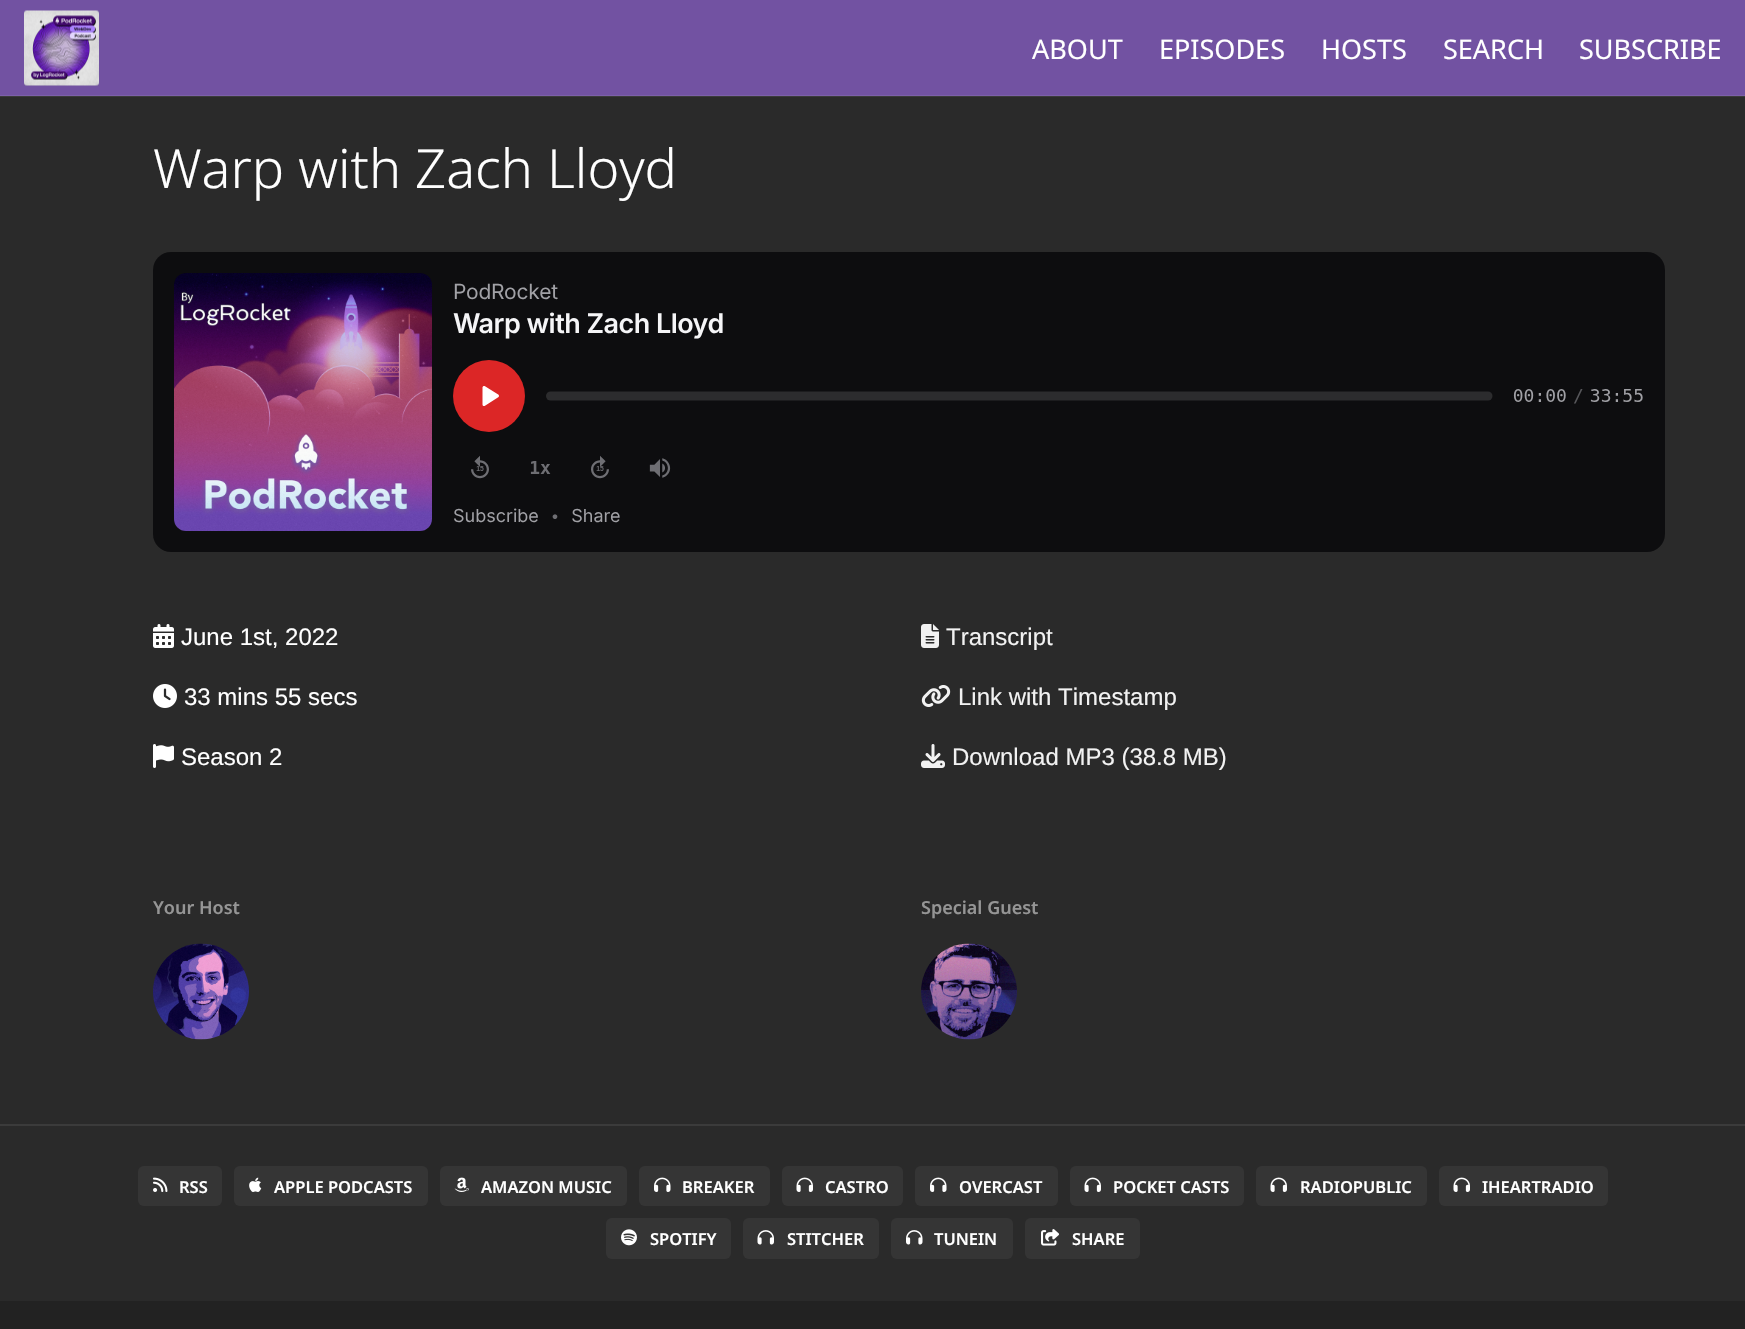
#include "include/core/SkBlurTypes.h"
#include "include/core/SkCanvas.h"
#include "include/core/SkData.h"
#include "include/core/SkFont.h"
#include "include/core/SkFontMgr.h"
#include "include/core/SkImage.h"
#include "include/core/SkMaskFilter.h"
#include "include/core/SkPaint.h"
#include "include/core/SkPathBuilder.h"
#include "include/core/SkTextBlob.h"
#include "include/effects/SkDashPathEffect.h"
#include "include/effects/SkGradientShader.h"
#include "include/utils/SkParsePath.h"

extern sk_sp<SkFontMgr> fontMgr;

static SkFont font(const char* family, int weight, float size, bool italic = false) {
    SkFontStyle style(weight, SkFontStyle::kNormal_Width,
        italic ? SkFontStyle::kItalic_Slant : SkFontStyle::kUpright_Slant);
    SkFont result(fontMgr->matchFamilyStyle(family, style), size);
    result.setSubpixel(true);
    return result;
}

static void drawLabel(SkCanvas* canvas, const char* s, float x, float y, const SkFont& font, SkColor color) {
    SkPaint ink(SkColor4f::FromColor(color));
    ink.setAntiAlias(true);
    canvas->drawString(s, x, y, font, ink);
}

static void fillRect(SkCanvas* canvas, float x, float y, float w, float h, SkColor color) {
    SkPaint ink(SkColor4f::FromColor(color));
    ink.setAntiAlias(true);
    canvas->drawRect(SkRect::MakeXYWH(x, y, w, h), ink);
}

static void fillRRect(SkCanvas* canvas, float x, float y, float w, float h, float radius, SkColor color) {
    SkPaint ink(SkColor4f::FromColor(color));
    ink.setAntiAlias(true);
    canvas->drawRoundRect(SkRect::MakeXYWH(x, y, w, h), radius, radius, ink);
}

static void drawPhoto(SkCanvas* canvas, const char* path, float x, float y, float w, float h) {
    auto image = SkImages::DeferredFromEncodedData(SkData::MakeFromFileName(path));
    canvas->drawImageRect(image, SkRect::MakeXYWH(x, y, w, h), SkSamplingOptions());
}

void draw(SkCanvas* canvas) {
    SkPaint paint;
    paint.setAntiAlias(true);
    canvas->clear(0xFF222222);
    fillRect(canvas, 0, 0, 1745, 95, 0xFF7252A2);
    fillRect(canvas, 0, 95, 1745, 1, 0xFF7D60A9);
    fillRect(canvas, 24, 11, 75, 75, 0xFF6C4E9A);
    drawPhoto(canvas, "assets/img1.png", 24, 10, 75, 76);
    SkFont font1 = font("Noto Sans", 400, 27);
    drawLabel(canvas, "ABOUT", 1032, 59, font1, 0xFFFFFFFF);
    drawLabel(canvas, "EPISODES", 1159, 59, font1, 0xFFFFFFFF);
    drawLabel(canvas, "HOSTS", 1321, 59, font1, 0xFFFFFFFF);
    drawLabel(canvas, "SEARCH", 1443, 59, font1, 0xFFFFFFFF);
    drawLabel(canvas, "SUBSCRIBE", 1579, 59, font1, 0xFFFFFFFF);
    fillRect(canvas, 0, 97, 1745, 1027, 0xFF2A2A2A);
    fillRect(canvas, 0, 96, 1745, 1, 0xFF3B3B3B);
    SkFont font2 = font("Noto Sans", 300, 54);
    drawLabel(canvas, "Warp with Zach Lloyd", 153, 188, font2, 0xFFFFFFFF);
    drawPhoto(canvas, "assets/img2.png", 153, 252, 1512, 300);
    drawPhoto(canvas, "assets/img3.png", 153, 624, 21, 24);
    SkFont font3 = font("Liberation Sans", 400, 24);
    drawLabel(canvas, "June 1st, 2022", 181, 645, font3, 0xFFFFFFFF);
    drawPhoto(canvas, "assets/img4.png", 153, 684, 24, 24);
    drawLabel(canvas, "33 mins 55 secs", 184, 705, font3, 0xFFFFFFFF);
    drawPhoto(canvas, "assets/img5.png", 153, 744, 21, 24);
    drawLabel(canvas, "Season 2", 181, 765, font3, 0xFFFFFFFF);
    drawPhoto(canvas, "assets/img6.png", 921, 624, 18, 24);
    drawLabel(canvas, "Transcript", 946, 645, font3, 0xFFF2F2F2);
    drawPhoto(canvas, "assets/img7.png", 921, 685, 30, 22);
    drawLabel(canvas, "Link with Timestamp", 958, 705, font3, 0xFFF2F2F2);
    drawPhoto(canvas, "assets/img8.png", 921, 744, 24, 24);
    drawLabel(canvas, "Download MP3 (38.8 MB)", 952, 765, font3, 0xFFF2F2F2);
    SkFont font4 = font("Noto Sans", 600, 18);
    drawLabel(canvas, "Your Host", 153, 914, font4, 0xFF959595);
    drawPhoto(canvas, "assets/img9.png", 153, 943, 96, 97);
    drawLabel(canvas, "Special Guest", 921, 914, font4, 0xFF959595);
    drawPhoto(canvas, "assets/img10.png", 921, 943, 96, 97);
    fillRect(canvas, 0, 1126, 1745, 175, 0xFF2A2A2A);
    fillRect(canvas, 0, 1124, 1745, 2, 0xFF3B3B3B);
    fillRRect(canvas, 138, 1166, 84, 40, 6, 0xFF353535);
    drawPhoto(canvas, "assets/img11.png", 153, 1177, 15, 15);
    SkFont font5 = font("Noto Sans", 600, 16.5f);
    drawLabel(canvas, "RSS", 179, 1193, font5, 0xFFFFFFFF);
    fillRRect(canvas, 234, 1166, 194, 40, 6, 0xFF353535);
    drawPhoto(canvas, "assets/img12.png", 249, 1177, 13, 15);
    drawLabel(canvas, "APPLE PODCASTS", 274, 1193, font5, 0xFFFFFFFF);
    fillRRect(canvas, 440, 1166, 187, 40, 6, 0xFF353535);
    drawPhoto(canvas, "assets/img13.png", 454, 1177, 15, 15);
    drawLabel(canvas, "AMAZON MUSIC", 481, 1193, font5, 0xFFFFFFFF);
    fillRRect(canvas, 639, 1166, 131, 40, 6, 0xFF353535);
    drawPhoto(canvas, "assets/img14.png", 654, 1177, 17, 15);
    drawLabel(canvas, "BREAKER", 682, 1193, font5, 0xFFFFFFFF);
    fillRRect(canvas, 782, 1166, 121, 40, 6, 0xFF353535);
    drawPhoto(canvas, "assets/img15.png", 796, 1177, 17, 15);
    drawLabel(canvas, "CASTRO", 825, 1193, font5, 0xFFFFFFFF);
    fillRRect(canvas, 915, 1166, 143, 40, 6, 0xFF353535);
    drawPhoto(canvas, "assets/img14.png", 930, 1177, 17, 15);
    drawLabel(canvas, "OVERCAST", 959, 1193, font5, 0xFFFFFFFF);
    fillRRect(canvas, 1070, 1166, 174, 40, 6, 0xFF353535);
    drawPhoto(canvas, "assets/img15.png", 1084, 1177, 17, 15);
    drawLabel(canvas, "POCKET CASTS", 1113, 1193, font5, 0xFFFFFFFF);
    fillRRect(canvas, 1256, 1166, 171, 40, 6, 0xFF353535);
    drawPhoto(canvas, "assets/img15.png", 1270, 1177, 17, 15);
    drawLabel(canvas, "RADIOPUBLIC", 1300, 1193, font5, 0xFFFFFFFF);
    fillRRect(canvas, 1439, 1166, 169, 40, 6, 0xFF353535);
    drawPhoto(canvas, "assets/img15.png", 1453, 1177, 17, 15);
    drawLabel(canvas, "IHEARTRADIO", 1482, 1193, font5, 0xFFFFFFFF);
    fillRRect(canvas, 606, 1218, 125, 41, 6, 0xFF353535);
    drawPhoto(canvas, "assets/img16.png", 621, 1229, 16, 17);
    drawLabel(canvas, "SPOTIFY", 650, 1245, font5, 0xFFFFFFFF);
    fillRRect(canvas, 743, 1218, 136, 41, 6, 0xFF353535);
    drawPhoto(canvas, "assets/img17.png", 757, 1230, 17, 15);
    drawLabel(canvas, "STITCHER", 787, 1245, font5, 0xFFFFFFFF);
    fillRRect(canvas, 891, 1218, 122, 41, 6, 0xFF353535);
    drawPhoto(canvas, "assets/img18.png", 906, 1230, 17, 15);
    drawLabel(canvas, "TUNEIN", 934, 1245, font5, 0xFFFFFFFF);
    fillRRect(canvas, 1025, 1218, 115, 41, 6, 0xFF353535);
    drawPhoto(canvas, "assets/img19.png", 1041, 1229, 18, 17);
    drawLabel(canvas, "SHARE", 1072, 1245, font5, 0xFFFFFFFF);
}
